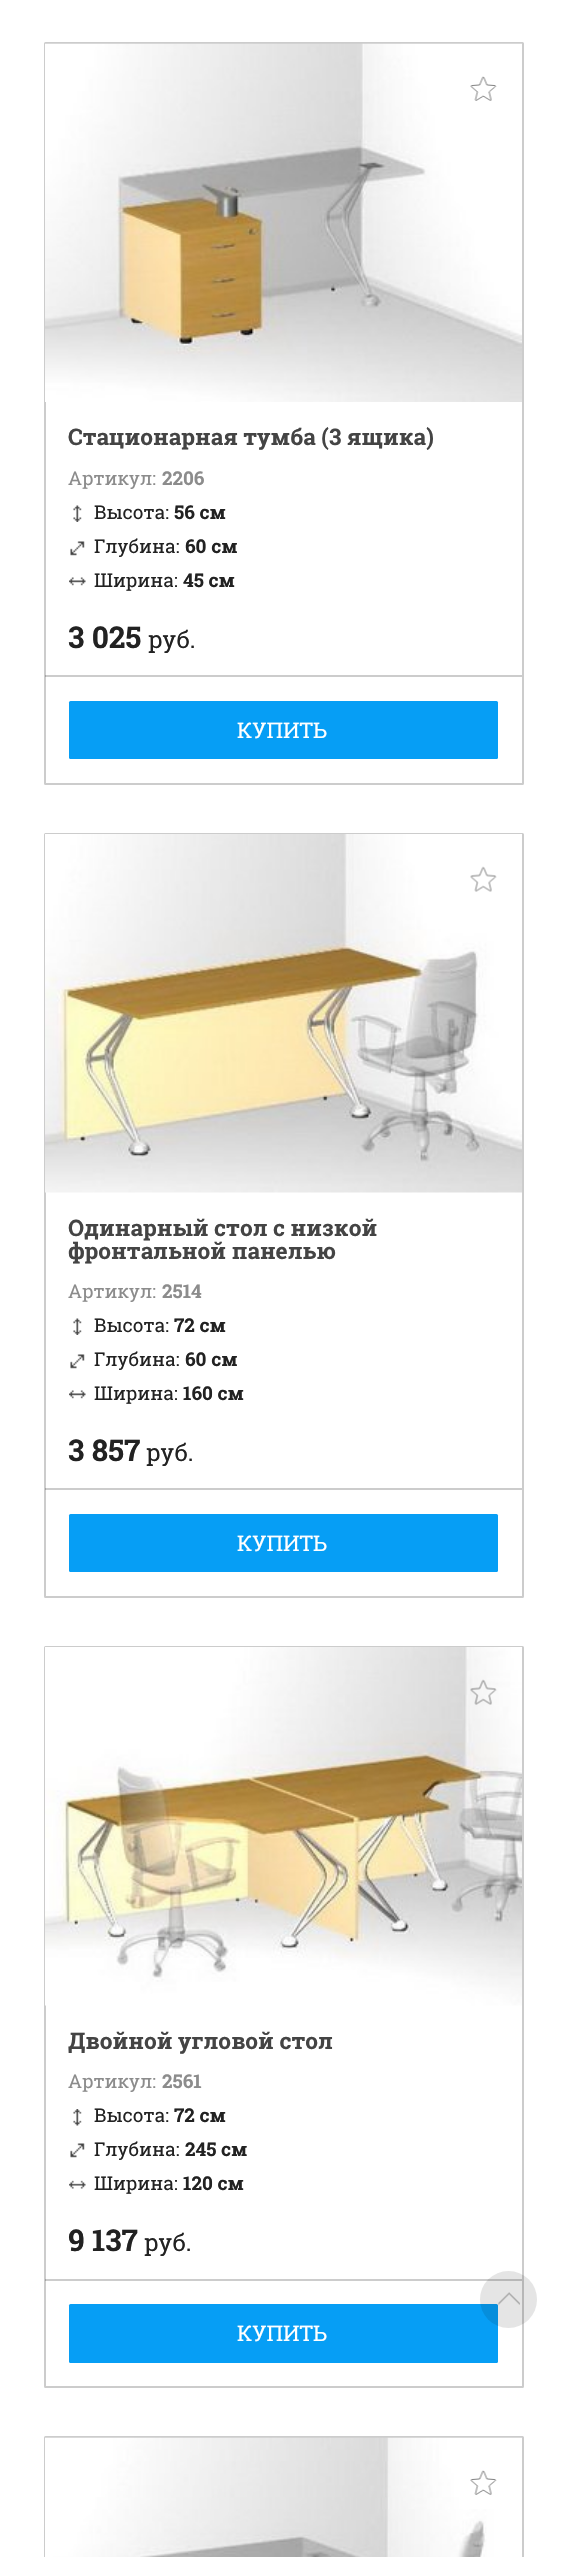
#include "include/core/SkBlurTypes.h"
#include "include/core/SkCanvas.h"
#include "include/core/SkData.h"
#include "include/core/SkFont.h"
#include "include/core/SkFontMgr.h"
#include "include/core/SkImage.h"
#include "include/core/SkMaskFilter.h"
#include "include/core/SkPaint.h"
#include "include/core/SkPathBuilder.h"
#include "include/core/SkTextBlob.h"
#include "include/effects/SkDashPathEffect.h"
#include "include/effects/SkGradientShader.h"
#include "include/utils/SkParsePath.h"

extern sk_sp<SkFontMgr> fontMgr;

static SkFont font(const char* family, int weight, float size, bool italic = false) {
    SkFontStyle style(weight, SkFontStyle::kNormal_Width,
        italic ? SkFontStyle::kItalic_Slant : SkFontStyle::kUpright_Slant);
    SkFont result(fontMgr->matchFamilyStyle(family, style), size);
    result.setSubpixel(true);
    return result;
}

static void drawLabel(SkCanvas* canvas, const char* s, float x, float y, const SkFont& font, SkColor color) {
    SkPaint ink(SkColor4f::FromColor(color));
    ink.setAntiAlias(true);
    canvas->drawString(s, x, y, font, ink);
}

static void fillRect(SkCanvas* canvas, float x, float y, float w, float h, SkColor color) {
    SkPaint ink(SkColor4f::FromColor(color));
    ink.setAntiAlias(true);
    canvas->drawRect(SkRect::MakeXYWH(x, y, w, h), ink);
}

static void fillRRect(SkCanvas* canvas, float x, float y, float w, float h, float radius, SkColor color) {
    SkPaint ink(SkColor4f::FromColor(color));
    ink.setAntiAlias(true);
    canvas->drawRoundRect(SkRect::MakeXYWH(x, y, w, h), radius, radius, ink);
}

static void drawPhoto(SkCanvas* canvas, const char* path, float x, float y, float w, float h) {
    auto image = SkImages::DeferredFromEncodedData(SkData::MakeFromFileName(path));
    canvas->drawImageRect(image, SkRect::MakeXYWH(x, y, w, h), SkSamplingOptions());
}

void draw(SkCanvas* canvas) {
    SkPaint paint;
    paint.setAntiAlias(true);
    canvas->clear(0xFFFFFFFF);
    paint.setStroke(true);
    paint.setStrokeWidth(2);
    paint.setColor(0xFFCCCCCC);
    canvas->drawRoundRect(SkRect::MakeXYWH(45, 43, 478, 741), 0.5f, 0.5f, paint);
    drawPhoto(canvas, "assets/img1.png", 45, 43, 477, 359);
    drawPhoto(canvas, "assets/img2.png", 470, 76, 27, 25);
    SkFont font1 = font("Roboto Slab", 700, 22.75f);
    drawLabel(canvas, "Стационарная тумба (3 ящика)", 68, 445, font1, 0xFF444444);
    SkFont font2 = font("Roboto Slab", 400, 19);
    drawLabel(canvas, "Артикул:", 68, 485, font2, 0xFF8C8C8C);
    SkFont font3 = font("Roboto Slab", 700, 19);
    drawLabel(canvas, "2206", 162, 485, font3, 0xFF8C8C8C);
    drawPhoto(canvas, "assets/img3.png", 73, 505, 9, 17);
    drawLabel(canvas, "Высота:", 94, 519, font2, 0xFF222222);
    drawLabel(canvas, "56 см", 174, 519, font3, 0xFF222222);
    drawPhoto(canvas, "assets/img4.png", 70, 541, 15, 15);
    drawLabel(canvas, "Глубина:", 94, 553, font2, 0xFF222222);
    drawLabel(canvas, "60 см", 185, 553, font3, 0xFF222222);
    drawPhoto(canvas, "assets/img5.png", 69, 577, 17, 9);
    drawLabel(canvas, "Ширина:", 94, 587, font2, 0xFF222222);
    drawLabel(canvas, "45 см", 183, 587, font3, 0xFF222222);
    SkFont font4 = font("Roboto Slab", 700, 30);
    drawLabel(canvas, "3 025", 68, 648, font4, 0xFF222222);
    SkFont font5 = font("Roboto Slab", 400, 24);
    drawLabel(canvas, "руб.", 148, 648, font5, 0xFF222222);
    fillRect(canvas, 45, 675, 477, 2, 0x33000000);
    fillRRect(canvas, 69, 701, 429, 58, 1.5f, 0xFF069EF5);
    SkFont font6 = font("Roboto Slab", 400, 21.5f);
    drawLabel(canvas, "КУПИТЬ", 237, 738, font6, 0xFFFFFFFF);
    canvas->drawRoundRect(SkRect::MakeXYWH(45, 834, 478, 763), 0.5f, 0.5f, paint);
    drawPhoto(canvas, "assets/img6.png", 45, 834, 477, 359);
    drawPhoto(canvas, "assets/img7.png", 470, 866, 27, 26);
    drawLabel(canvas, "Одинарный стол с низкой", 68, 1236, font1, 0xFF444444);
    drawLabel(canvas, "фронтальной панелью", 68, 1259, font1, 0xFF444444);
    drawLabel(canvas, "Артикул:", 68, 1298, font2, 0xFF8C8C8C);
    drawLabel(canvas, "2514", 162, 1298, font3, 0xFF8C8C8C);
    drawPhoto(canvas, "assets/img3.png", 73, 1318, 9, 17);
    drawLabel(canvas, "Высота:", 94, 1332, font2, 0xFF222222);
    drawLabel(canvas, "72 см", 174, 1332, font3, 0xFF222222);
    drawPhoto(canvas, "assets/img4.png", 70, 1354, 15, 15);
    drawLabel(canvas, "Глубина:", 94, 1366, font2, 0xFF222222);
    drawLabel(canvas, "60 см", 185, 1366, font3, 0xFF222222);
    drawPhoto(canvas, "assets/img5.png", 69, 1390, 17, 9);
    drawLabel(canvas, "Ширина:", 94, 1400, font2, 0xFF222222);
    drawLabel(canvas, "160 см", 183, 1400, font3, 0xFF222222);
    drawLabel(canvas, "3 857", 68, 1461, font4, 0xFF222222);
    drawLabel(canvas, "руб.", 146, 1461, font5, 0xFF222222);
    fillRect(canvas, 45, 1488, 477, 2, 0x33000000);
    fillRRect(canvas, 69, 1514, 429, 58, 1.5f, 0xFF069EF5);
    drawLabel(canvas, "КУПИТЬ", 237, 1551, font6, 0xFFFFFFFF);
    canvas->drawRoundRect(SkRect::MakeXYWH(45, 1647, 478, 740), 0.5f, 0.5f, paint);
    drawPhoto(canvas, "assets/img8.png", 45, 1647, 477, 359);
    drawPhoto(canvas, "assets/img9.png", 470, 1679, 27, 26);
    drawLabel(canvas, "Двойной угловой стол", 68, 2049, font1, 0xFF444444);
    drawLabel(canvas, "Артикул:", 68, 2088, font2, 0xFF8C8C8C);
    drawLabel(canvas, "2561", 162, 2088, font3, 0xFF8C8C8C);
    drawPhoto(canvas, "assets/img10.png", 73, 2109, 9, 17);
    drawLabel(canvas, "Высота:", 94, 2122, font2, 0xFF222222);
    drawLabel(canvas, "72 см", 174, 2122, font3, 0xFF222222);
    drawPhoto(canvas, "assets/img4.png", 70, 2143, 15, 15);
    drawLabel(canvas, "Глубина:", 94, 2156, font2, 0xFF222222);
    drawLabel(canvas, "245 см", 185, 2156, font3, 0xFF222222);
    drawPhoto(canvas, "assets/img11.png", 69, 2180, 17, 9);
    drawLabel(canvas, "Ширина:", 94, 2190, font2, 0xFF222222);
    drawLabel(canvas, "120 см", 183, 2190, font3, 0xFF222222);
    drawLabel(canvas, "9 137", 68, 2251, font4, 0xFF222222);
    drawLabel(canvas, "руб.", 144, 2251, font5, 0xFF222222);
    fillRect(canvas, 45, 2279, 477, 2, 0x33000000);
    fillRRect(canvas, 69, 2304, 429, 59, 1.5f, 0xFF069EF5);
    drawLabel(canvas, "КУПИТЬ", 237, 2341, font6, 0xFFFFFFFF);
    canvas->drawRoundRect(SkRect::MakeXYWH(45, 2437, 478, 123), 0.5f, 0.5f, paint);
    drawPhoto(canvas, "assets/img12.png", 45, 2437, 477, 120);
    drawPhoto(canvas, "assets/img2.png", 470, 2470, 27, 25);
    paint.setStroke(false);
    paint.setColor(0x1A000000);
    canvas->drawCircle(508.5f, 2299.5f, 28.5f, paint);
    drawPhoto(canvas, "assets/img13.png", 498, 2292, 22, 13);
}
